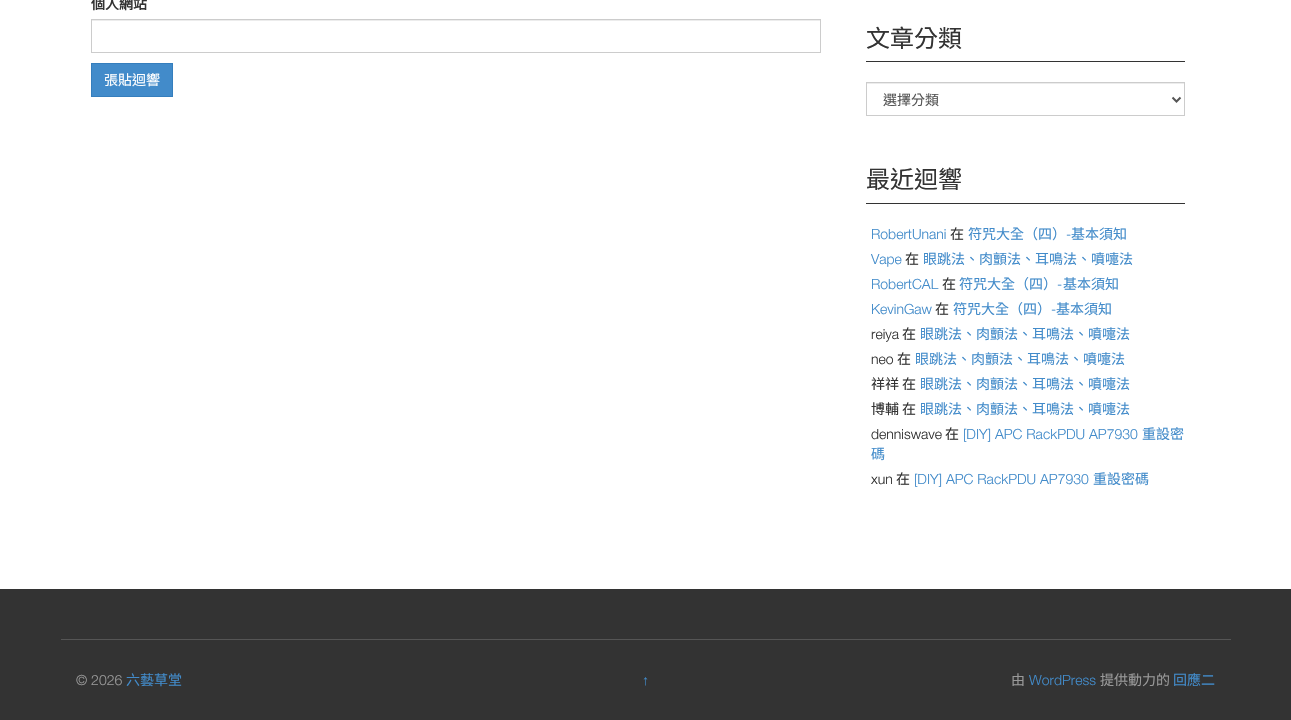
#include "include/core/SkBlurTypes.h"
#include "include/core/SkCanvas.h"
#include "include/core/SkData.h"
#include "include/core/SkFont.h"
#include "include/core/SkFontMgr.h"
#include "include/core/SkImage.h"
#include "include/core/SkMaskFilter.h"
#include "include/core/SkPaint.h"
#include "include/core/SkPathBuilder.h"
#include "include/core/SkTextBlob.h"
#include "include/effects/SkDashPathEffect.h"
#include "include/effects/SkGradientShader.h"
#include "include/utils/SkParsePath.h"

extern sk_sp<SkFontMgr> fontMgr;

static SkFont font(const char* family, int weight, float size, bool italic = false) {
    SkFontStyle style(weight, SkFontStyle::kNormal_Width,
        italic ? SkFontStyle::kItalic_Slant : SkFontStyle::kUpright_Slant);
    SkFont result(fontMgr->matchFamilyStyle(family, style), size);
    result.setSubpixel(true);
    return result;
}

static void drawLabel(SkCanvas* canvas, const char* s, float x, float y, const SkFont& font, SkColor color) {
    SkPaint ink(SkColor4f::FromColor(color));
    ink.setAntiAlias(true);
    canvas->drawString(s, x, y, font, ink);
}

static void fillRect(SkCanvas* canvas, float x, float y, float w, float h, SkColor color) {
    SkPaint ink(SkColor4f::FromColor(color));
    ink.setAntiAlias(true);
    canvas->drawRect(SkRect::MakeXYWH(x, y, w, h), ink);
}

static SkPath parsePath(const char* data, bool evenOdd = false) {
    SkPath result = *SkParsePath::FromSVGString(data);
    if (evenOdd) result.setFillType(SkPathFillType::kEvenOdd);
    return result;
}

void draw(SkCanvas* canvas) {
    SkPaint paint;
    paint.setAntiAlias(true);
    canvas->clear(0xFFFFFFFF);
    SkFont font1 = font("Noto Sans CJK TC", 700, 14);
    drawLabel(canvas, "個人網站", 91, 9, font1, 0xFF333333);
    fillRect(canvas, 92, 20, 728, 1, 0xFFECECEC);
    paint.setStroke(true);
    paint.setStrokeWidth(1);
    paint.setColor(0xFFCCCCCC);
    canvas->drawRect(SkRect::MakeXYWH(91.5f, 19.5f, 729, 33), paint);
    paint.setStroke(false);
    paint.setColor(0xFF428BCA);
    canvas->drawRect(SkRect::MakeXYWH(91.5f, 63.5f, 81, 33), paint);
    paint.setStroke(true);
    paint.setColor(0xFF357EBD);
    canvas->drawRect(SkRect::MakeXYWH(91.5f, 63.5f, 81, 33), paint);
    SkFont font2 = font("Noto Sans CJK TC", 400, 14);
    drawLabel(canvas, "張貼迴響", 104, 85, font2, 0xFFFFFFFF);
    fillRect(canvas, 866, 61, 319, 1, 0xFF333333);
    SkFont font3 = font("Noto Sans CJK TC", 400, 24);
    drawLabel(canvas, "文章分類", 866, 47, font3, 0xFF333333);
    fillRect(canvas, 867, 83, 317, 1, 0xFFECECEC);
    paint.setColor(0xFFCCCCCC);
    canvas->drawRect(SkRect::MakeXYWH(866.5f, 82.5f, 318, 33), paint);
    paint.setStrokeWidth(2);
    paint.setColor(0xFF555555);
    canvas->drawPath(parsePath("M1172.5 97.5L1176.5 101.5L1180.5 97.5"), paint);
    drawLabel(canvas, "選擇分類", 883, 105, font2, 0xFF555555);
    fillRect(canvas, 866, 203, 319, 1, 0xFF333333);
    drawLabel(canvas, "最近迴響", 866, 188, font3, 0xFF333333);
    SkFont font4 = font("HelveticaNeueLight", 300, 14);
    drawLabel(canvas, "RobertUnani", 871, 239, font4, 0xFF428BCA);
    drawLabel(canvas, "在", 950, 239, font2, 0xFF333333);
    drawLabel(canvas, "符咒大全（四）", 968, 239, font2, 0xFF428BCA);
    drawLabel(canvas, "-", 1066, 239, font4, 0xFF428BCA);
    drawLabel(canvas, "基本須知", 1071, 239, font2, 0xFF428BCA);
    drawLabel(canvas, "Vape", 871, 264, font4, 0xFF428BCA);
    drawLabel(canvas, "在", 905, 264, font2, 0xFF333333);
    drawLabel(canvas, "眼跳法、肉顫法、耳鳴法、噴嚏法", 923, 264, font2, 0xFF428BCA);
    drawLabel(canvas, "RobertCAL", 871, 289, font4, 0xFF428BCA);
    drawLabel(canvas, "在", 942, 289, font2, 0xFF333333);
    drawLabel(canvas, "符咒大全（四）", 959, 289, font2, 0xFF428BCA);
    drawLabel(canvas, "-", 1057, 289, font4, 0xFF428BCA);
    drawLabel(canvas, "基本須知", 1063, 289, font2, 0xFF428BCA);
    drawLabel(canvas, "KevinGaw", 871, 314, font4, 0xFF428BCA);
    drawLabel(canvas, "在", 935, 314, font2, 0xFF333333);
    drawLabel(canvas, "符咒大全（四）", 953, 314, font2, 0xFF428BCA);
    drawLabel(canvas, "-", 1051, 314, font4, 0xFF428BCA);
    drawLabel(canvas, "基本須知", 1056, 314, font2, 0xFF428BCA);
    drawLabel(canvas, "reiya", 871, 339, font4, 0xFF333333);
    drawLabel(canvas, "在", 902, 339, font2, 0xFF333333);
    drawLabel(canvas, "眼跳法、肉顫法、耳鳴法、噴嚏法", 920, 339, font2, 0xFF428BCA);
    drawLabel(canvas, "neo", 871, 364, font4, 0xFF333333);
    drawLabel(canvas, "在", 897, 364, font2, 0xFF333333);
    drawLabel(canvas, "眼跳法、肉顫法、耳鳴法、噴嚏法", 915, 364, font2, 0xFF428BCA);
    drawLabel(canvas, "祥祥", 871, 389, font2, 0xFF333333);
    drawLabel(canvas, "在", 902, 389, font2, 0xFF333333);
    drawLabel(canvas, "眼跳法、肉顫法、耳鳴法、噴嚏法", 920, 389, font2, 0xFF428BCA);
    drawLabel(canvas, "博輔", 871, 414, font2, 0xFF333333);
    drawLabel(canvas, "在", 902, 414, font2, 0xFF333333);
    drawLabel(canvas, "眼跳法、肉顫法、耳鳴法、噴嚏法", 920, 414, font2, 0xFF428BCA);
    drawLabel(canvas, "denniswave", 871, 439, font4, 0xFF333333);
    drawLabel(canvas, "在", 945, 439, font2, 0xFF333333);
    drawLabel(canvas, "[DIY] APC RackPDU AP7930", 963, 439, font4, 0xFF428BCA);
    drawLabel(canvas, "重設密", 1142, 439, font2, 0xFF428BCA);
    drawLabel(canvas, "碼", 871, 459, font2, 0xFF428BCA);
    drawLabel(canvas, "xun", 871, 484, font4, 0xFF333333);
    drawLabel(canvas, "在", 896, 484, font2, 0xFF333333);
    drawLabel(canvas, "[DIY] APC RackPDU AP7930", 914, 484, font4, 0xFF428BCA);
    drawLabel(canvas, "重設密碼", 1093, 484, font2, 0xFF428BCA);
    fillRect(canvas, 0, 589, 1291, 131, 0xFF333333);
    fillRect(canvas, 61, 639, 1170, 1, 0xFF555555);
    drawLabel(canvas, "© 2026", 76, 685, font4, 0xFF999999);
    drawLabel(canvas, "六藝草堂", 126, 685, font2, 0xFF428BCA);
    SkFont font5 = font("Liberation Sans", 400, 14);
    drawLabel(canvas, "↑", 642, 685, font5, 0xFF428BCA);
    drawLabel(canvas, "由", 1011, 685, font2, 0xFF999999);
    drawLabel(canvas, "WordPress", 1029, 685, font4, 0xFF428BCA);
    drawLabel(canvas, "提供動力的", 1100, 685, font2, 0xFF999999);
    drawLabel(canvas, "回應二", 1173, 685, font2, 0xFF428BCA);
}
